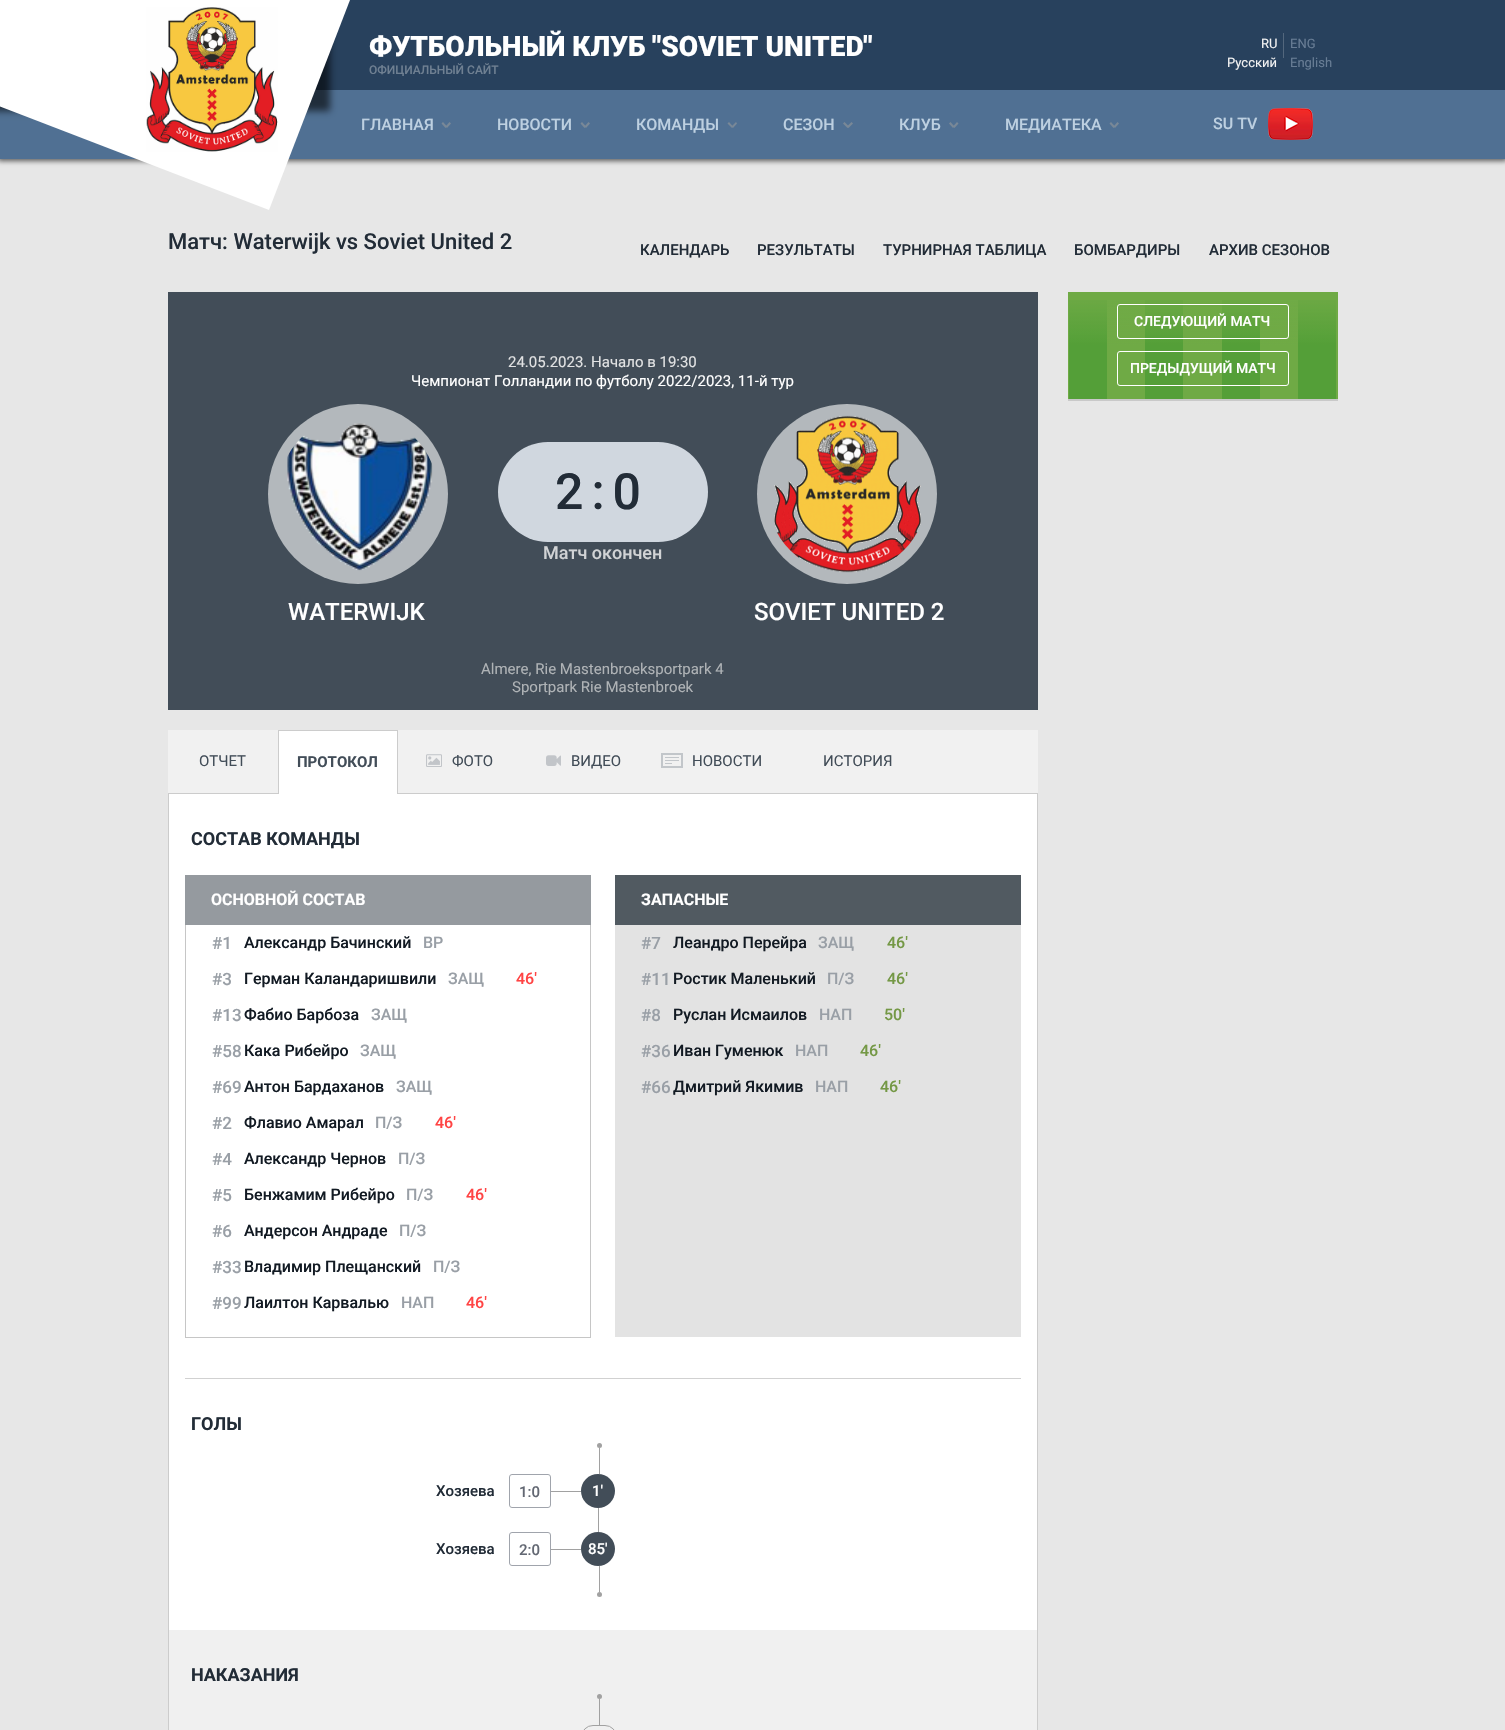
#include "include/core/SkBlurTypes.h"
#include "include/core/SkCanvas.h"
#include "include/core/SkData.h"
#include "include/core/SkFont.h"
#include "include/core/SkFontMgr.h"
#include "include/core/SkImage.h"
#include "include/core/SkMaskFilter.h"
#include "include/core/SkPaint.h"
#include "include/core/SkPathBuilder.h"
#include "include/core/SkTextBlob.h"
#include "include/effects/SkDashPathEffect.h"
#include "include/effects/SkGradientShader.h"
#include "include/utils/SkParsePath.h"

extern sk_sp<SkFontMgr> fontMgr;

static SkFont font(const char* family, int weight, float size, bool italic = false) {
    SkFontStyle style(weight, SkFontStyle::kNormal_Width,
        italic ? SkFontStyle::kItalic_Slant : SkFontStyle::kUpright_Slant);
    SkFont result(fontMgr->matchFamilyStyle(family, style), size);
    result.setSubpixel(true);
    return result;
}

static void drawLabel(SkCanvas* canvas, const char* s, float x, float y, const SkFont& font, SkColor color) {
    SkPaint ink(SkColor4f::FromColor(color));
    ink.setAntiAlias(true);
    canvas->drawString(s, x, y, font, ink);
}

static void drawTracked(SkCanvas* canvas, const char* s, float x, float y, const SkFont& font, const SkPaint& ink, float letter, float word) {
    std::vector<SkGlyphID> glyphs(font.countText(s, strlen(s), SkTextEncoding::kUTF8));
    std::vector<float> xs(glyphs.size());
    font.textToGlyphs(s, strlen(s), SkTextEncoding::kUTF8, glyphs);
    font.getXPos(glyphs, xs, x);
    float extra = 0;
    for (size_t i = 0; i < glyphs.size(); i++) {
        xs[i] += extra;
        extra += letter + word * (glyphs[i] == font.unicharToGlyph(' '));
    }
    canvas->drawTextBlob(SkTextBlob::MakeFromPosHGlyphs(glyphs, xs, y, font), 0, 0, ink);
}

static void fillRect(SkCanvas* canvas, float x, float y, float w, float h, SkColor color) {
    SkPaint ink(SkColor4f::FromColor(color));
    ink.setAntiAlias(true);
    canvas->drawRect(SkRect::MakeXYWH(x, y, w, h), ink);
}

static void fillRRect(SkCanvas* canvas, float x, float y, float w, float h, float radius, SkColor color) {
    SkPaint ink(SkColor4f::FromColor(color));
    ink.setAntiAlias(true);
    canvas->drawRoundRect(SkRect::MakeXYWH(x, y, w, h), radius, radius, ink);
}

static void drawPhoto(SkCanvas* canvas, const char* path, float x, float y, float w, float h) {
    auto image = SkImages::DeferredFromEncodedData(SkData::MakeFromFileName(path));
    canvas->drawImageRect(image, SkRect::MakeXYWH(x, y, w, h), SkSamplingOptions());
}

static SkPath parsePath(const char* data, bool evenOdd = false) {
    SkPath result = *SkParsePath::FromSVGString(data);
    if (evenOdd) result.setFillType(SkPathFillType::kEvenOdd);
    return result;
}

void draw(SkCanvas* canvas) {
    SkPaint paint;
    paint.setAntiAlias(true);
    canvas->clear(0xFFE7E7E7);
    paint.setColor(0x99000000);
    paint.setMaskFilter(SkMaskFilter::MakeBlur(kNormal_SkBlurStyle, 2.5f));
    canvas->drawRect(SkRect::MakeXYWH(-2, -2, 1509, 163), paint);
    paint.setMaskFilter(nullptr);
    fillRect(canvas, 315, 0, 1190, 90, 0xFF28415D);
    fillRect(canvas, 0, 90, 1505, 69, 0xFF507093);
    paint.setMaskFilter(SkMaskFilter::MakeBlur(kNormal_SkBlurStyle, 3.5f));
    canvas->drawRect(SkRect::MakeXYWH(-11, -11, 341, 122), paint);
    paint.setMaskFilter(nullptr);
    paint.setColor(0xFFFFFFFF);
    canvas->drawPath(parsePath("M-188-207L350 0L269 210L-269 3Z"), paint);
    drawPhoto(canvas, "assets/img1.png", 146, 7, 132, 145);
    SkFont font1 = font("Roboto", 900, 28);
    drawLabel(canvas, "ФУТБОЛЬНЫЙ КЛУБ \"SOVIET UNITED\"", 369, 56, font1, 0xFFFFFFFF);
    SkFont font2 = font("Roboto", 500, 12);
    drawLabel(canvas, "ОФИЦИАЛЬНЫЙ САЙТ", 369, 74, font2, 0xFF6F8092);
    SkFont font3 = font("Roboto", 400, 13);
    drawLabel(canvas, "RU", 1261, 48, font3, 0xFFF3F3F3);
    drawLabel(canvas, "Русский", 1227, 67, font3, 0xFFF3F3F3);
    fillRect(canvas, 1283, 33, 1, 25, 0xFF53677D);
    drawLabel(canvas, "ENG", 1290, 48, font3, 0xFF687D95);
    drawLabel(canvas, "English", 1290, 67, font3, 0xFF687D95);
    SkFont font4 = font("Roboto", 500, 16);
    drawLabel(canvas, "ГЛАВНАЯ", 361, 130, font4, 0xFFBDD0E1);
    paint.setColor(0xFF798897);
    canvas->drawPath(parsePath("M441.5 123.5L443 122L447 126.5L445.5 128Z"), paint);
    canvas->drawPath(parsePath("M449.5 122L451 123.5L447 128L445.5 126.5Z"), paint);
    drawLabel(canvas, "НОВОСТИ", 497, 130, font4, 0xFFBDD0E1);
    canvas->drawPath(parsePath("M580.5 123.5L582 122L586 126.5L584.5 128Z"), paint);
    canvas->drawPath(parsePath("M588.5 122L590 123.5L586 128L584.5 126.5Z"), paint);
    drawLabel(canvas, "КОМАНДЫ", 636, 130, font4, 0xFFBDD0E1);
    canvas->drawPath(parsePath("M727.5 123.5L729 122L733 126.5L732 128Z"), paint);
    canvas->drawPath(parsePath("M736 122L737 123.5L733 128L731.5 126.5Z"), paint);
    drawLabel(canvas, "СЕЗОН", 783, 130, font4, 0xFFBDD0E1);
    canvas->drawPath(parsePath("M843 123.5L844.5 122L849 126.5L847.5 128Z"), paint);
    canvas->drawPath(parsePath("M851.5 122L853 123.5L848.5 128L847 126.5Z"), paint);
    drawLabel(canvas, "КЛУБ", 899, 130, font4, 0xFFBDD0E1);
    canvas->drawPath(parsePath("M949 123.5L950.5 122L954.5 126.5L953 128Z"), paint);
    canvas->drawPath(parsePath("M957 122L958.5 123.5L954.5 128L953 126.5Z"), paint);
    drawLabel(canvas, "МЕДИАТЕКА", 1005, 130, font4, 0xFFBDD0E1);
    canvas->drawPath(parsePath("M1109.5 123.5L1111 122L1115 126.5L1113.5 128Z"), paint);
    canvas->drawPath(parsePath("M1117.5 122L1119 123.5L1115 128L1113.5 126.5Z"), paint);
    drawLabel(canvas, "SU ТV", 1213, 129, font4, 0xFFBDD0E1);
    drawPhoto(canvas, "assets/img2.png", 1268, 108, 45, 32);
    SkFont font5 = font("Roboto", 500, 22);
    drawLabel(canvas, "Матч: Waterwijk vs Soviet United 2", 168, 249, font5, 0xFF222C37);
    SkFont font6 = font("Roboto", 500, 15);
    drawLabel(canvas, "КАЛЕНДАРЬ", 640, 255, font6, 0xFF222C37);
    drawLabel(canvas, "РЕЗУЛЬТАТЫ", 757, 255, font6, 0xFF222C37);
    drawLabel(canvas, "ТУРНИРНАЯ ТАБЛИЦА", 883, 255, font6, 0xFF222C37);
    drawLabel(canvas, "БОМБАРДИРЫ", 1074, 255, font6, 0xFF222C37);
    drawLabel(canvas, "АРХИВ СЕЗОНОВ", 1209, 255, font6, 0xFF222C37);
    fillRect(canvas, 1068, 399, 270, 2, 0xFFC9C9C9);
    fillRect(canvas, 1068, 292, 270, 107, 0xFF6FAA45);
    drawPhoto(canvas, "assets/img3.png", 1069, 300, 267, 99);
    paint.setStroke(true);
    paint.setStrokeWidth(1);
    paint.setColor(0xFFFFFFFF);
    canvas->drawRoundRect(SkRect::MakeXYWH(1117.5f, 304.5f, 171, 34), 2.5f, 2.5f, paint);
    SkFont font7 = font("Roboto", 500, 14);
    drawLabel(canvas, "СЛЕДУЮЩИЙ МАТЧ", 1134, 326, font7, 0xFFFFFFFF);
    canvas->drawRoundRect(SkRect::MakeXYWH(1117.5f, 351.5f, 171, 34), 2.5f, 2.5f, paint);
    drawLabel(canvas, "ПРЕДЫДУЩИЙ МАТЧ", 1130, 373, font7, 0xFFFFFFFF);
    fillRect(canvas, 168, 292, 870, 418, 0xFF424D58);
    SkFont font8 = font("Roboto", 400, 15);
    drawLabel(canvas, "24.05.2023. Начало в 19:30", 508, 367, font8, 0xFFE1E2E3);
    drawLabel(canvas, "Чемпионат Голландии по футболу 2022/2023, 11-й тур", 411, 386, font8, 0xFFFFFFFF);
    paint.setStroke(false);
    paint.setColor(0xFFB3B8BC);
    canvas->drawCircle(358, 494, 90, paint);
    drawPhoto(canvas, "assets/img4.png", 287, 423, 146, 148);
    fillRRect(canvas, 498, 442, 210, 100, 50, 0xFFD0D7DF);
    SkFont font9 = font("Roboto", 500, 50);
    paint.setColor(0xFF222C37);
    drawTracked(canvas, "2:0", 555, 509, font9, paint, 8, 0);
    SkFont font10 = font("Roboto", 500, 18);
    drawLabel(canvas, "Матч окончен", 543, 559, font10, 0xFFD1D3D5);
    paint.setColor(0xFFB3B8BC);
    canvas->drawCircle(847, 494, 90, paint);
    drawPhoto(canvas, "assets/img5.png", 774, 415, 147, 158);
    SkFont font11 = font("Roboto", 500, 24);
    drawLabel(canvas, "WATERWIJK", 288, 620, font11, 0xFFFFFFFF);
    drawLabel(canvas, "SOVIET UNITED 2", 754, 620, font11, 0xFFFFFFFF);
    drawLabel(canvas, "Almere, Rie Mastenbroeksportpark 4", 481, 674, font8, 0xFFAFB3B6);
    drawLabel(canvas, "Sportpark Rie Mastenbroek", 512, 692, font8, 0xFFAFB3B6);
    fillRect(canvas, 168, 730, 870, 63, 0xFFF1F1F1);
    fillRect(canvas, 168, 793, 870, 1, 0xFFCCCCCC);
    drawLabel(canvas, "ОТЧЕТ", 199, 766, font8, 0xFF424D58);
    fillRect(canvas, 279, 731, 118, 63, 0xFFFFFFFF);
    fillRect(canvas, 278, 730, 120, 1, 0xFFCCCCCC);
    fillRect(canvas, 397, 730, 1, 64, 0xFFCCCCCC);
    fillRect(canvas, 278, 730, 1, 64, 0xFFCCCCCC);
    SkFont font12 = font("Roboto", 700, 15);
    drawLabel(canvas, "ПРОТОКОЛ", 297, 767, font12, 0xFF424D58);
    drawPhoto(canvas, "assets/img6.png", 426, 754, 16, 13);
    drawLabel(canvas, "ФОТО", 452, 766, font8, 0xFF424D58);
    drawPhoto(canvas, "assets/img7.png", 546, 755, 15, 11);
    drawLabel(canvas, "ВИДЕО", 571, 766, font8, 0xFF424D58);
    drawPhoto(canvas, "assets/img8.png", 661, 753, 22, 15);
    drawLabel(canvas, "НОВОСТИ", 692, 766, font8, 0xFF424D58);
    drawLabel(canvas, "ИСТОРИЯ", 823, 766, font8, 0xFF424D58);
    fillRect(canvas, 169, 794, 868, 836, 0xFFFFFFFF);
    fillRect(canvas, 1037, 794, 1, 936, 0xFFCCCCCC);
    fillRect(canvas, 168, 794, 1, 936, 0xFFCCCCCC);
    SkFont font13 = font("Roboto", 700, 18);
    drawLabel(canvas, "СОСТАВ КОМАНДЫ", 191, 845, font13, 0xFF222C37);
    fillRect(canvas, 185, 1378, 836, 1, 0xFFD1D1D1);
    fillRect(canvas, 185, 875, 406, 50, 0xFF959A9F);
    SkFont font14 = font("Roboto", 700, 16);
    drawLabel(canvas, "ОСНОВНОЙ СОСТАВ", 211, 905, font14, 0xFFFFFFFF);
    fillRect(canvas, 590, 925, 1, 413, 0xFFC6C6C6);
    fillRect(canvas, 185, 1337, 406, 1, 0xFFC6C6C6);
    fillRect(canvas, 185, 925, 1, 413, 0xFFC6C6C6);
    SkFont font15 = font("Roboto", 500, 17);
    drawLabel(canvas, "#1", 212, 949, font15, 0xFF999FA6);
    drawLabel(canvas, "Александр Бачинский", 244, 948, font4, 0xFF121A23);
    drawLabel(canvas, "ВР", 423, 948, font4, 0xFF999FA6);
    drawLabel(canvas, "#3", 212, 985, font15, 0xFF999FA6);
    drawLabel(canvas, "Герман Каландаришвили", 244, 984, font4, 0xFF121A23);
    drawLabel(canvas, "ЗАЩ", 448, 984, font4, 0xFF999FA6);
    drawLabel(canvas, "46'", 516, 984, font4, 0xFFFF4444);
    drawLabel(canvas, "#13", 212, 1021, font15, 0xFF999FA6);
    drawLabel(canvas, "Фабио Барбоза", 244, 1020, font4, 0xFF121A23);
    drawLabel(canvas, "ЗАЩ", 371, 1020, font4, 0xFF999FA6);
    drawLabel(canvas, "#58", 212, 1057, font15, 0xFF999FA6);
    drawLabel(canvas, "Кака Рибейро", 244, 1056, font4, 0xFF121A23);
    drawLabel(canvas, "ЗАЩ", 360, 1056, font4, 0xFF999FA6);
    drawLabel(canvas, "#69", 212, 1093, font15, 0xFF999FA6);
    drawLabel(canvas, "Антон Бардаханов", 244, 1092, font4, 0xFF121A23);
    drawLabel(canvas, "ЗАЩ", 396, 1092, font4, 0xFF999FA6);
    drawLabel(canvas, "#2", 212, 1129, font15, 0xFF999FA6);
    drawLabel(canvas, "Флавио Амарал", 244, 1128, font4, 0xFF121A23);
    drawLabel(canvas, "П/З", 375, 1128, font4, 0xFF999FA6);
    drawLabel(canvas, "46'", 435, 1128, font4, 0xFFFF4444);
    drawLabel(canvas, "#4", 212, 1165, font15, 0xFF999FA6);
    drawLabel(canvas, "Александр Чернов", 244, 1164, font4, 0xFF121A23);
    drawLabel(canvas, "П/З", 398, 1164, font4, 0xFF999FA6);
    drawLabel(canvas, "#5", 212, 1201, font15, 0xFF999FA6);
    drawLabel(canvas, "Бенжамим Рибейро", 244, 1200, font4, 0xFF121A23);
    drawLabel(canvas, "П/З", 406, 1200, font4, 0xFF999FA6);
    drawLabel(canvas, "46'", 466, 1200, font4, 0xFFFF4444);
    drawLabel(canvas, "#6", 212, 1237, font15, 0xFF999FA6);
    drawLabel(canvas, "Андерсон Андраде", 244, 1236, font4, 0xFF121A23);
    drawLabel(canvas, "П/З", 399, 1236, font4, 0xFF999FA6);
    drawLabel(canvas, "#33", 212, 1273, font15, 0xFF999FA6);
    drawLabel(canvas, "Владимир Плещанский", 244, 1272, font4, 0xFF121A23);
    drawLabel(canvas, "П/З", 433, 1272, font4, 0xFF999FA6);
    drawLabel(canvas, "#99", 212, 1309, font15, 0xFF999FA6);
    drawLabel(canvas, "Лаилтон Карвалью", 244, 1308, font4, 0xFF121A23);
    drawLabel(canvas, "НАП", 401, 1308, font4, 0xFF999FA6);
    drawLabel(canvas, "46'", 466, 1308, font4, 0xFFFF4444);
    fillRect(canvas, 615, 875, 406, 50, 0xFF515A61);
    drawLabel(canvas, "ЗАПАСНЫЕ", 641, 905, font14, 0xFFFFFFFF);
    fillRect(canvas, 615, 925, 406, 412, 0xFFE3E3E3);
    drawLabel(canvas, "#7", 641, 949, font15, 0xFF999FA6);
    drawLabel(canvas, "Леандро Перейра", 673, 948, font4, 0xFF121A23);
    drawLabel(canvas, "ЗАЩ", 818, 948, font4, 0xFF999FA6);
    drawLabel(canvas, "46'", 887, 948, font4, 0xFF749845);
    drawLabel(canvas, "#11", 641, 985, font15, 0xFF999FA6);
    drawLabel(canvas, "Ростик Маленький", 673, 984, font4, 0xFF121A23);
    drawLabel(canvas, "П/З", 827, 984, font4, 0xFF999FA6);
    drawLabel(canvas, "46'", 887, 984, font4, 0xFF749845);
    drawLabel(canvas, "#8", 641, 1021, font15, 0xFF999FA6);
    drawLabel(canvas, "Руслан Исмаилов", 673, 1020, font4, 0xFF121A23);
    drawLabel(canvas, "НАП", 819, 1020, font4, 0xFF999FA6);
    drawLabel(canvas, "50'", 884, 1020, font4, 0xFF749845);
    drawLabel(canvas, "#36", 641, 1057, font15, 0xFF999FA6);
    drawLabel(canvas, "Иван Гуменюк", 673, 1056, font4, 0xFF121A23);
    drawLabel(canvas, "НАП", 795, 1056, font4, 0xFF999FA6);
    drawLabel(canvas, "46'", 860, 1056, font4, 0xFF749845);
    drawLabel(canvas, "#66", 641, 1093, font15, 0xFF999FA6);
    drawLabel(canvas, "Дмитрий Якимив", 673, 1092, font4, 0xFF121A23);
    drawLabel(canvas, "НАП", 815, 1092, font4, 0xFF999FA6);
    drawLabel(canvas, "46'", 880, 1092, font4, 0xFF749845);
    drawLabel(canvas, "ГОЛЫ", 191, 1430, font13, 0xFF222C37);
    paint.setColor(0xFFA1A1A1);
    canvas->drawCircle(599.5f, 1445.5f, 2.5f, paint);
    fillRect(canvas, 599, 1448, 1, 26, 0xFFA1A1A1);
    drawLabel(canvas, "Хозяева", 436, 1496, font6, 0xFF222C37);
    paint.setStroke(true);
    paint.setColor(0xFFA0A4AC);
    canvas->drawRoundRect(SkRect::MakeXYWH(509.5f, 1474.5f, 41, 33), 2.5f, 2.5f, paint);
    drawLabel(canvas, "1:0", 519, 1497, font6, 0xFF636873);
    paint.setStroke(false);
    paint.setColor(0xFF424D58);
    canvas->drawCircle(598, 1491, 17, paint);
    fillRect(canvas, 551, 1491, 30, 1, 0xFFA1A1A1);
    drawLabel(canvas, "1'", 592, 1496, font6, 0xFFFFFFFF);
    fillRect(canvas, 598, 1508, 1, 24, 0xFFA1A1A1);
    drawLabel(canvas, "Хозяева", 436, 1554, font6, 0xFF222C37);
    paint.setStroke(true);
    paint.setColor(0xFFA0A4AC);
    canvas->drawRoundRect(SkRect::MakeXYWH(509.5f, 1532.5f, 41, 33), 2.5f, 2.5f, paint);
    drawLabel(canvas, "2:0", 519, 1555, font6, 0xFF636873);
    paint.setStroke(false);
    paint.setColor(0xFF424D58);
    canvas->drawCircle(598, 1549, 17, paint);
    fillRect(canvas, 551, 1549, 30, 1, 0xFFA1A1A1);
    drawLabel(canvas, "85'", 588, 1554, font6, 0xFFFFFFFF);
    fillRect(canvas, 599, 1566, 1, 26, 0xFFA1A1A1);
    paint.setColor(0xFFA1A1A1);
    canvas->drawCircle(599.5f, 1594.5f, 2.5f, paint);
    fillRect(canvas, 169, 1630, 868, 100, 0xFFF0F0F0);
    drawLabel(canvas, "НАКАЗАНИЯ", 191, 1681, font13, 0xFF222C37);
    canvas->drawCircle(599.5f, 1696.5f, 2.5f, paint);
    fillRect(canvas, 599, 1699, 1, 26, 0xFFA1A1A1);
    paint.setStroke(true);
    canvas->drawRoundRect(SkRect::MakeXYWH(581.5f, 1725.5f, 35, 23), 17.5f, 17.5f, paint);
}
